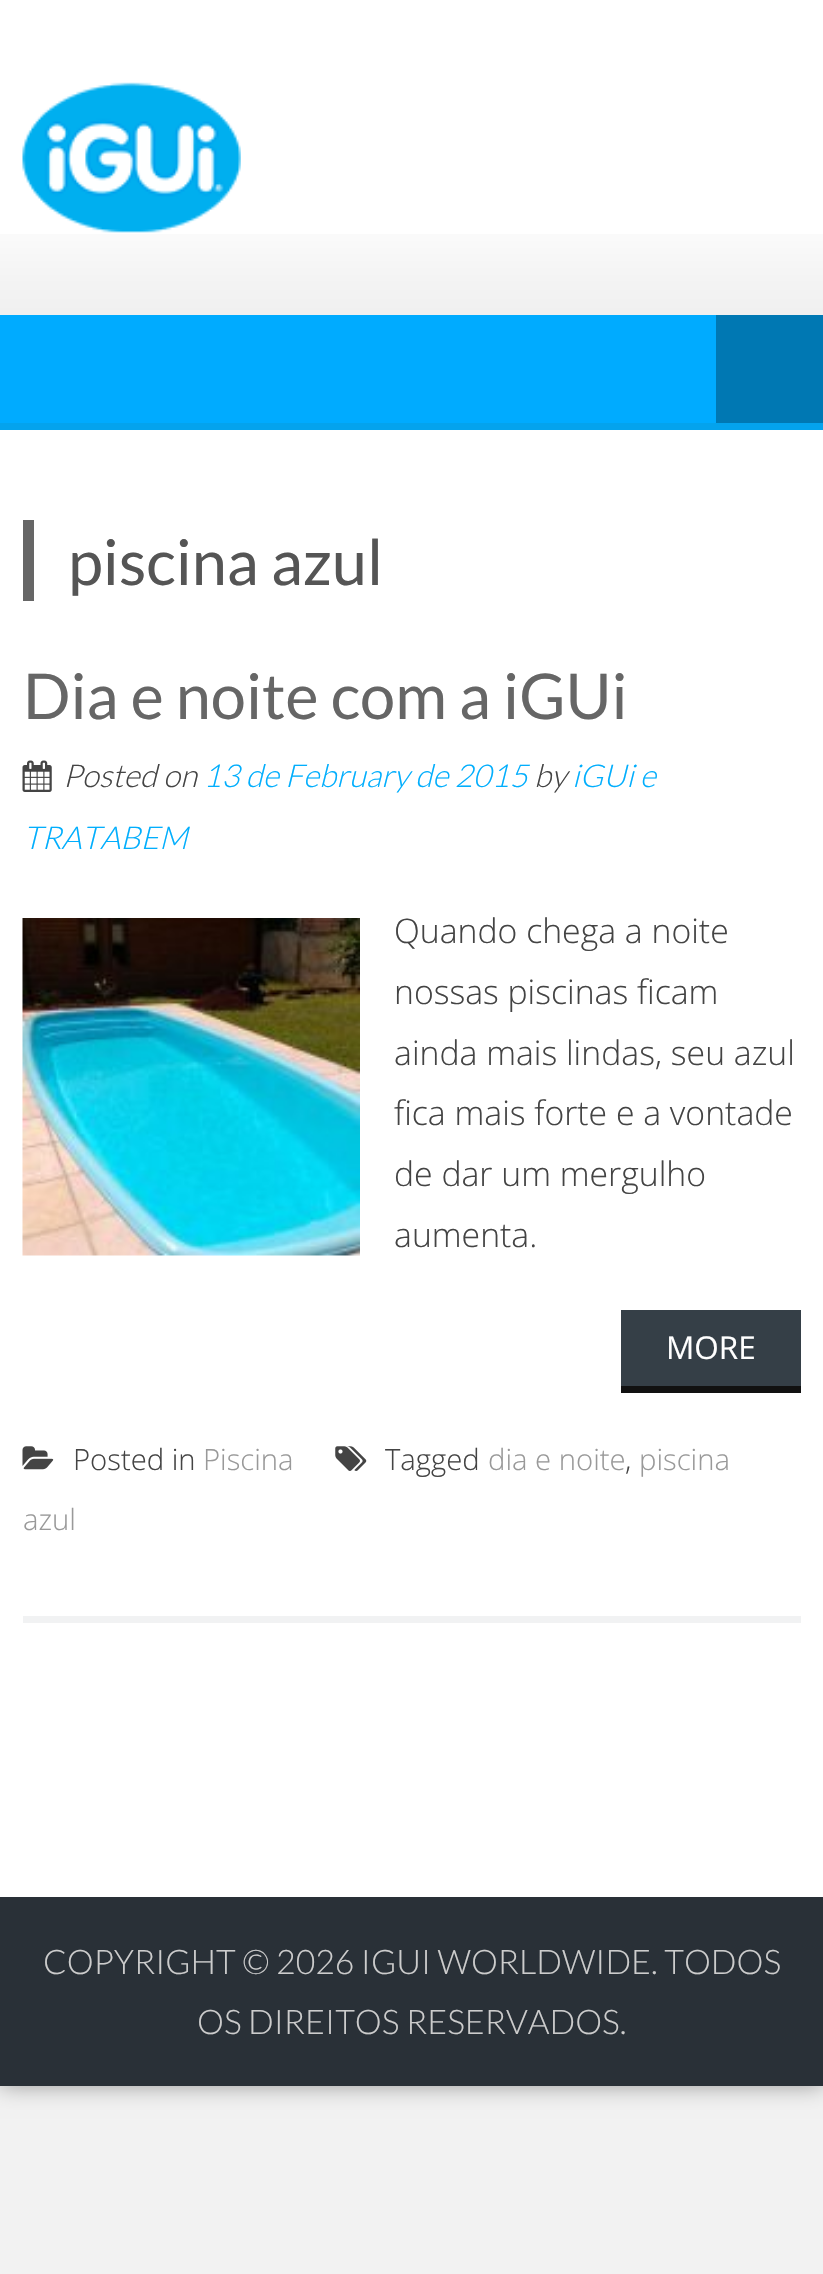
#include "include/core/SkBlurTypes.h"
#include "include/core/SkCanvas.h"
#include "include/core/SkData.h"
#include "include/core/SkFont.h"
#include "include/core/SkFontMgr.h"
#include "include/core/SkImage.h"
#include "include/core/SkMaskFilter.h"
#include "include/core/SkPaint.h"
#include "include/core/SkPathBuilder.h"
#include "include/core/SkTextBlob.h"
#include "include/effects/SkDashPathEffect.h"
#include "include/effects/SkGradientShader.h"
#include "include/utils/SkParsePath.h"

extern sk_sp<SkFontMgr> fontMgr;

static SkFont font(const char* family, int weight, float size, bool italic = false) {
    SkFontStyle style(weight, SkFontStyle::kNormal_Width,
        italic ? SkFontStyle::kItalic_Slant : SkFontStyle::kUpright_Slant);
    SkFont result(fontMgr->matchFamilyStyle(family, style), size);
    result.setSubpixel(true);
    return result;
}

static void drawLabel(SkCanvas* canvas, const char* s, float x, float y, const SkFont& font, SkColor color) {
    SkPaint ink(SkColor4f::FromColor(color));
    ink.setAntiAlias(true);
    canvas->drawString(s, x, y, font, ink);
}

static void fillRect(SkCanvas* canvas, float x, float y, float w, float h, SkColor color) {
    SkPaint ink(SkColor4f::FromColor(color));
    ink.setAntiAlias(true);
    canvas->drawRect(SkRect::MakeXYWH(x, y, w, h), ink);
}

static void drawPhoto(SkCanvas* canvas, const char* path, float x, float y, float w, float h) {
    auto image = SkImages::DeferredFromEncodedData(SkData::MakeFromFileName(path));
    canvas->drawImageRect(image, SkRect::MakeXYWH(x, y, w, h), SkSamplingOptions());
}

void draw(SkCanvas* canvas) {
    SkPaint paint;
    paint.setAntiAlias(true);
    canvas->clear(0xFFF2F2F2);
    paint.setColor(0xFF999999);
    paint.setMaskFilter(SkMaskFilter::MakeBlur(kNormal_SkBlurStyle, 11));
    canvas->drawRect(SkRect::MakeXYWH(0, 0, 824, 2086), paint);
    paint.setMaskFilter(nullptr);
    fillRect(canvas, 0, 0, 823, 1897, 0xFFFFFFFF);
    drawPhoto(canvas, "assets/img1.png", 0, 234, 823, 81);
    drawPhoto(canvas, "assets/img2.png", 22, 82, 219, 151);
    fillRect(canvas, 0, 315, 716, 108, 0xFF00ABFF);
    fillRect(canvas, 0, 423, 823, 7, 0xFF04A3ED);
    fillRect(canvas, 716, 315, 107, 108, 0xFF0078B3);
    fillRect(canvas, 23, 520, 11, 81, 0xFF666666);
    SkFont font1 = font("Lato", 400, 63);
    drawLabel(canvas, "piscina azul", 68, 585, font1, 0xFF555555);
    fillRect(canvas, 23, 1616, 778, 7, 0xFFF1F2F3);
    drawLabel(canvas, "Dia e noite com a iGUi", 23, 719, font1, 0xFF666666);
    drawPhoto(canvas, "assets/img3.png", 22, 760, 30, 32);
    SkFont font2 = font("Lato", 300, 31.5f, true);
    drawLabel(canvas, "Posted on", 63, 787, font2, 0xFF444444);
    drawLabel(canvas, "13 de February de 2015", 203, 787, font2, 0xFF01AEFD);
    drawLabel(canvas, "by", 534, 787, font2, 0xFF444444);
    drawLabel(canvas, "iGUi e", 572, 787, font2, 0xFF01AEFD);
    drawLabel(canvas, "TRATABEM", 23, 849, font2, 0xFF01AEFD);
    drawPhoto(canvas, "assets/img4.png", 22, 918, 338, 338);
    SkFont font3 = font("Open Sans", 300, 33.75f);
    drawLabel(canvas, "Quando chega a noite", 394, 943, font3, 0xFF444444);
    drawLabel(canvas, "nossas piscinas ficam", 394, 1004, font3, 0xFF444444);
    drawLabel(canvas, "ainda mais lindas, seu azul", 394, 1065, font3, 0xFF444444);
    drawLabel(canvas, "fica mais forte e a vontade", 394, 1125, font3, 0xFF444444);
    drawLabel(canvas, "de dar um mergulho", 394, 1186, font3, 0xFF444444);
    drawLabel(canvas, "aumenta.", 394, 1247, font3, 0xFF444444);
    fillRect(canvas, 621, 1310, 180, 76, 0xFF353F47);
    fillRect(canvas, 621, 1386, 180, 7, 0xFF111111);
    SkFont font4 = font("Open Sans", 400, 31.5f);
    drawLabel(canvas, "MORE", 666, 1359, font4, 0xFFFFFFFF);
    drawPhoto(canvas, "assets/img5.png", 22, 1446, 32, 24);
    SkFont font5 = font("Open Sans", 300, 29.25f);
    drawLabel(canvas, "Posted in", 73, 1470, font5, 0xFF444444);
    drawLabel(canvas, "Piscina", 203, 1470, font5, 0xFF999999);
    drawPhoto(canvas, "assets/img6.png", 335, 1446, 32, 25);
    drawLabel(canvas, "Tagged", 385, 1470, font5, 0xFF444444);
    drawLabel(canvas, "dia e noite", 488, 1470, font5, 0xFF999999);
    drawLabel(canvas, ",", 625, 1470, font5, 0xFF444444);
    drawLabel(canvas, "piscina", 639, 1470, font5, 0xFF999999);
    drawLabel(canvas, "azul", 23, 1530, font5, 0xFF999999);
    fillRect(canvas, 0, 1897, 823, 189, 0xFF293037);
    SkFont font6 = font("Lato", 300, 33.75f);
    drawLabel(canvas, "COPYRIGHT © 2026 IGUI WORLDWIDE. TODOS", 43, 1974, font6, 0xFFCCCCCC);
    drawLabel(canvas, "OS DIREITOS RESERVADOS.", 197, 2034, font6, 0xFFCCCCCC);
}
